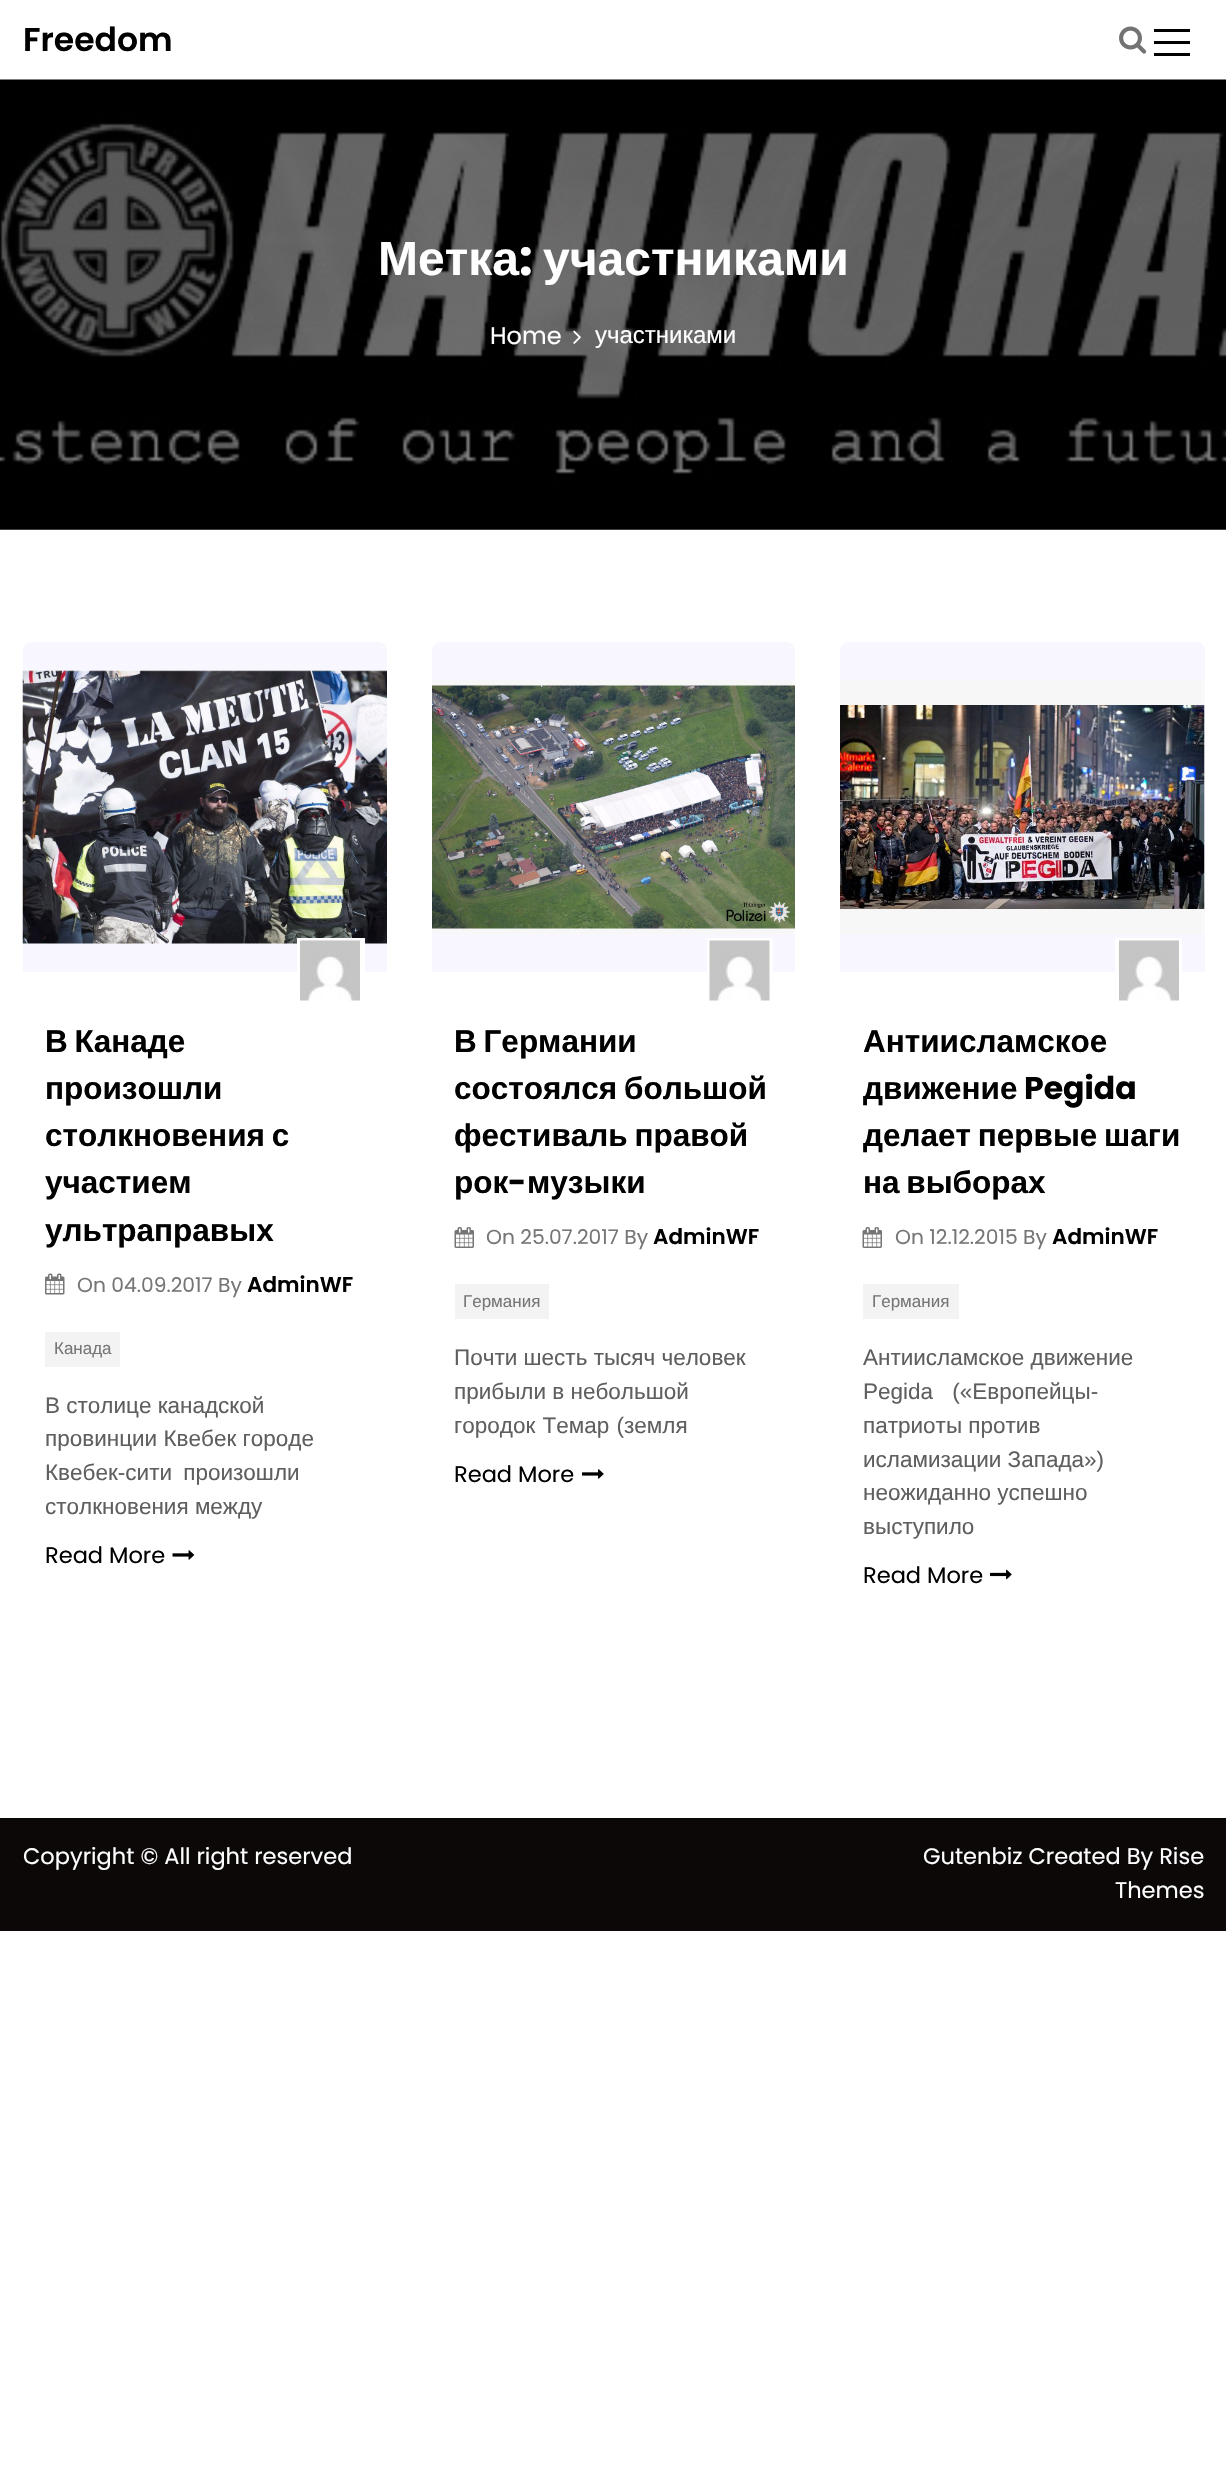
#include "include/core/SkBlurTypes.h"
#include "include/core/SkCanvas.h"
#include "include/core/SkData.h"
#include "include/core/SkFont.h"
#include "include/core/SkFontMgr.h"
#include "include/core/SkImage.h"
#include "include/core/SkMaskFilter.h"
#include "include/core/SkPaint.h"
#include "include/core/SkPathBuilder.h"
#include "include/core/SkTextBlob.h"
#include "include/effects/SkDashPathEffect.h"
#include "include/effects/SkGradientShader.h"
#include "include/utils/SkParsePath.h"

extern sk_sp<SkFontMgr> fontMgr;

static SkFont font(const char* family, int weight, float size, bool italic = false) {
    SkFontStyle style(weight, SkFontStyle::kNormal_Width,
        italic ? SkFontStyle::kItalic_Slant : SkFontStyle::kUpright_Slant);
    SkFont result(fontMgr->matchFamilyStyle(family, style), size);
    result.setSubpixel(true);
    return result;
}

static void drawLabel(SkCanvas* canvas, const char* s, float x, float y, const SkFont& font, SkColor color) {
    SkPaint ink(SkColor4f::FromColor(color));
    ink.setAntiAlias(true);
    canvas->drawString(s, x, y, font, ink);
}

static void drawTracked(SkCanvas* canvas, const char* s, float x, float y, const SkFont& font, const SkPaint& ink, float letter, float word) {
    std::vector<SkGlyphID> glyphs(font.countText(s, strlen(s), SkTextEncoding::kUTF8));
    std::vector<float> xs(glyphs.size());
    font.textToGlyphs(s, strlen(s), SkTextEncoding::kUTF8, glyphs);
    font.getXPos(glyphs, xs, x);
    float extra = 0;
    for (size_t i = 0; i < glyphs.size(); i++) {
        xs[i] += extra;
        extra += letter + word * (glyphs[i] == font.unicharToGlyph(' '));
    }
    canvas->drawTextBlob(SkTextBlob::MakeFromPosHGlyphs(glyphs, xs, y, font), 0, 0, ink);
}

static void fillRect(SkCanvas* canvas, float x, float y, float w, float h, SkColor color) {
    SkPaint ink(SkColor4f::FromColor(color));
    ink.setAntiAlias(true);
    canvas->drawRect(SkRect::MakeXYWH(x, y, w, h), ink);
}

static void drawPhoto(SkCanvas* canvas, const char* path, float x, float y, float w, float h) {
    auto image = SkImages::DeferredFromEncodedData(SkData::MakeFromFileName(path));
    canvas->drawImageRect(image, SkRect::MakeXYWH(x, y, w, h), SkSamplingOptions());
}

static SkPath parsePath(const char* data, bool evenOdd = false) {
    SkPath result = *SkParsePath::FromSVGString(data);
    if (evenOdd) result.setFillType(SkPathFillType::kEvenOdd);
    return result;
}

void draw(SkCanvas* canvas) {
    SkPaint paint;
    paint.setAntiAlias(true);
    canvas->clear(0xFFFFFFFF);
    SkFont font1 = font("Poppins", 600, 33);
    drawLabel(canvas, "Freedom", 23, 51, font1, 0xFF000000);
    drawPhoto(canvas, "assets/img1.png", 1119, 26, 28, 28);
    fillRect(canvas, 1154, 29, 36, 3, 0xFF000000);
    fillRect(canvas, 1154, 41, 36, 3, 0xFF000000);
    fillRect(canvas, 1154, 53, 36, 3, 0xFF000000);
    fillRect(canvas, 0, 529, 1226, 1, 0xFF7E7E7E);
    drawPhoto(canvas, "assets/img2.png", 0, 79, 1226, 451);
    SkFont font2 = font("Liberation Sans", 700, 48);
    drawLabel(canvas, "Метка", 378, 275, font2, 0xFFFFFFFF);
    SkFont font3 = font("Poppins", 700, 48);
    drawLabel(canvas, ":", 519, 275, font3, 0xFFFFFFFF);
    drawLabel(canvas, "участниками", 543, 275, font2, 0xFFFFFFFF);
    SkFont font4 = font("Poppins", 400, 24);
    drawLabel(canvas, "Home", 490, 344, font4, 0xFFFFFFFF);
    drawPhoto(canvas, "assets/img3.png", 573, 330, 8, 14);
    SkFont font5 = font("Liberation Sans", 400, 24);
    drawLabel(canvas, "участниками", 595, 343, font5, 0xFFFFFFFF);
    paint.setColor(0xFFF8F6FE);
    canvas->drawPath(parsePath("M32 642H378C383 642 387 646 387 651V972H23V651C23 646 27 642 32 642Z"), paint);
    drawPhoto(canvas, "assets/img4.png", 22, 670, 365, 274);
    SkFont font6 = font("Liberation Sans", 700, 31.5f);
    paint.setColor(0xFF000000);
    drawTracked(canvas, "В Канаде", 45, 1052, font6, paint, 0, -2);
    drawLabel(canvas, "произошли", 45, 1099, font6, 0xFF000000);
    drawTracked(canvas, "столкновения с", 45, 1146, font6, paint, 0, -2);
    drawLabel(canvas, "участием", 45, 1193, font6, 0xFF000000);
    drawLabel(canvas, "ультраправых", 45, 1241, font6, 0xFF000000);
    fillRect(canvas, 297, 938, 68, 34, 0xFFFFFFFF);
    drawPhoto(canvas, "assets/img5.png", 300, 940, 60, 61);
    drawPhoto(canvas, "assets/img6.png", 45, 1273, 20, 22);
    SkFont font7 = font("Poppins", 400, 20.25f);
    drawLabel(canvas, "On 04.09.2017 By", 77, 1292, font7, 0xFF767676);
    SkFont font8 = font("Poppins", 600, 21.5f);
    drawLabel(canvas, "AdminWF", 247, 1292, font8, 0xFF000000);
    fillRect(canvas, 45, 1332, 75, 35, 0xFFF3F3F3);
    SkFont font9 = font("Liberation Sans", 400, 17);
    drawLabel(canvas, "Канада", 54, 1354, font9, 0xFF767676);
    SkFont font10 = font("Liberation Sans", 400, 22.5f);
    drawLabel(canvas, "В столице канадской", 45, 1413, font10, 0xFF5F5F5F);
    drawLabel(canvas, "провинции Квебек городе", 45, 1446, font10, 0xFF5F5F5F);
    paint.setColor(0xFF5F5F5F);
    drawTracked(canvas, "Квебек-сити произошли", 45, 1480, font10, paint, 0, 5);
    drawLabel(canvas, "столкновения между", 45, 1514, font10, 0xFF5F5F5F);
    SkFont font11 = font("Poppins", 400, 22.5f);
    drawLabel(canvas, "Read More", 45, 1563, font11, 0xFF000000);
    drawPhoto(canvas, "assets/img7.png", 172, 1550, 23, 10);
    paint.setColor(0xFFF8F6FE);
    canvas->drawPath(parsePath("M441 642H786C791 642 795 646 795 651V972H432V651C432 646 436 642 441 642Z"), paint);
    drawPhoto(canvas, "assets/img8.png", 432, 680, 363, 254);
    paint.setColor(0xFF000000);
    drawTracked(canvas, "В Германии", 454, 1052, font6, paint, 0, -2);
    drawTracked(canvas, "состоялся большой", 454, 1099, font6, paint, 0, -2);
    drawTracked(canvas, "фестиваль правой", 454, 1146, font6, paint, 0, -2);
    drawLabel(canvas, "рок", 454, 1193, font6, 0xFF000000);
    SkFont font12 = font("Poppins", 700, 31.5f);
    drawLabel(canvas, "-", 508, 1193, font12, 0xFF000000);
    drawLabel(canvas, "музыки", 527, 1193, font6, 0xFF000000);
    fillRect(canvas, 707, 938, 66, 34, 0xFFFFFFFF);
    drawPhoto(canvas, "assets/img9.png", 709, 940, 61, 61);
    drawPhoto(canvas, "assets/img10.png", 454, 1227, 20, 21);
    drawLabel(canvas, "On 25.07.2017 By", 486, 1244, font7, 0xFF767676);
    drawLabel(canvas, "AdminWF", 653, 1244, font8, 0xFF000000);
    fillRect(canvas, 455, 1284, 94, 35, 0xFFF3F3F3);
    drawLabel(canvas, "Германия", 463, 1307, font9, 0xFF767676);
    drawLabel(canvas, "Почти шесть тысяч человек", 454, 1365, font10, 0xFF5F5F5F);
    drawLabel(canvas, "прибыли в небольшой", 454, 1399, font10, 0xFF5F5F5F);
    paint.setColor(0xFF5F5F5F);
    drawTracked(canvas, "городок Темар (земля", 454, 1433, font10, paint, 0, 1);
    drawLabel(canvas, "Read More", 454, 1482, font11, 0xFF000000);
    drawPhoto(canvas, "assets/img11.png", 582, 1469, 22, 10);
    paint.setColor(0xFFF8F6FE);
    canvas->drawPath(parsePath("M849 642H1196C1201 642 1205 646 1205 651V972H840V651C840 646 844 642 849 642Z"), paint);
    drawPhoto(canvas, "assets/img12.png", 840, 680, 365, 254);
    drawLabel(canvas, "Антиисламское", 863, 1052, font6, 0xFF000000);
    drawLabel(canvas, "движение", 863, 1099, font6, 0xFF000000);
    drawLabel(canvas, "Pegida", 1024, 1099, font12, 0xFF000000);
    paint.setColor(0xFF000000);
    drawTracked(canvas, "делает первые шаги", 863, 1146, font6, paint, 0, -2);
    drawTracked(canvas, "на выборах", 863, 1193, font6, paint, 0, -2);
    fillRect(canvas, 1115, 938, 67, 34, 0xFFFFFFFF);
    drawPhoto(canvas, "assets/img5.png", 1119, 940, 60, 61);
    drawPhoto(canvas, "assets/img10.png", 862, 1227, 20, 21);
    drawLabel(canvas, "On 12.12.2015 By", 895, 1244, font7, 0xFF767676);
    drawLabel(canvas, "AdminWF", 1052, 1244, font8, 0xFF000000);
    fillRect(canvas, 863, 1284, 96, 35, 0xFFF3F3F3);
    drawLabel(canvas, "Германия", 872, 1307, font9, 0xFF767676);
    drawLabel(canvas, "Антиисламское движение", 863, 1365, font10, 0xFF5F5F5F);
    paint.setColor(0xFF5F5F5F);
    drawTracked(canvas, "Pegida («Европейцы-", 863, 1399, font10, paint, 0, 13);
    drawLabel(canvas, "патриоты против", 863, 1433, font10, 0xFF5F5F5F);
    drawLabel(canvas, "исламизации Запада»)", 863, 1467, font10, 0xFF5F5F5F);
    drawLabel(canvas, "неожиданно успешно", 863, 1500, font10, 0xFF5F5F5F);
    drawLabel(canvas, "выступило", 863, 1534, font10, 0xFF5F5F5F);
    drawLabel(canvas, "Read More", 863, 1583, font11, 0xFF000000);
    drawPhoto(canvas, "assets/img13.png", 990, 1569, 22, 11);
    fillRect(canvas, 0, 1818, 1226, 113, 0xFF0C0808);
    drawLabel(canvas, "Copyright © All right reserved", 23, 1864, font11, 0xFFFFFFFF);
    drawLabel(canvas, "Gutenbiz Created By Rise", 923, 1864, font11, 0xFFFFFFFF);
    drawLabel(canvas, "Themes", 1115, 1898, font11, 0xFFFFFFFF);
}
